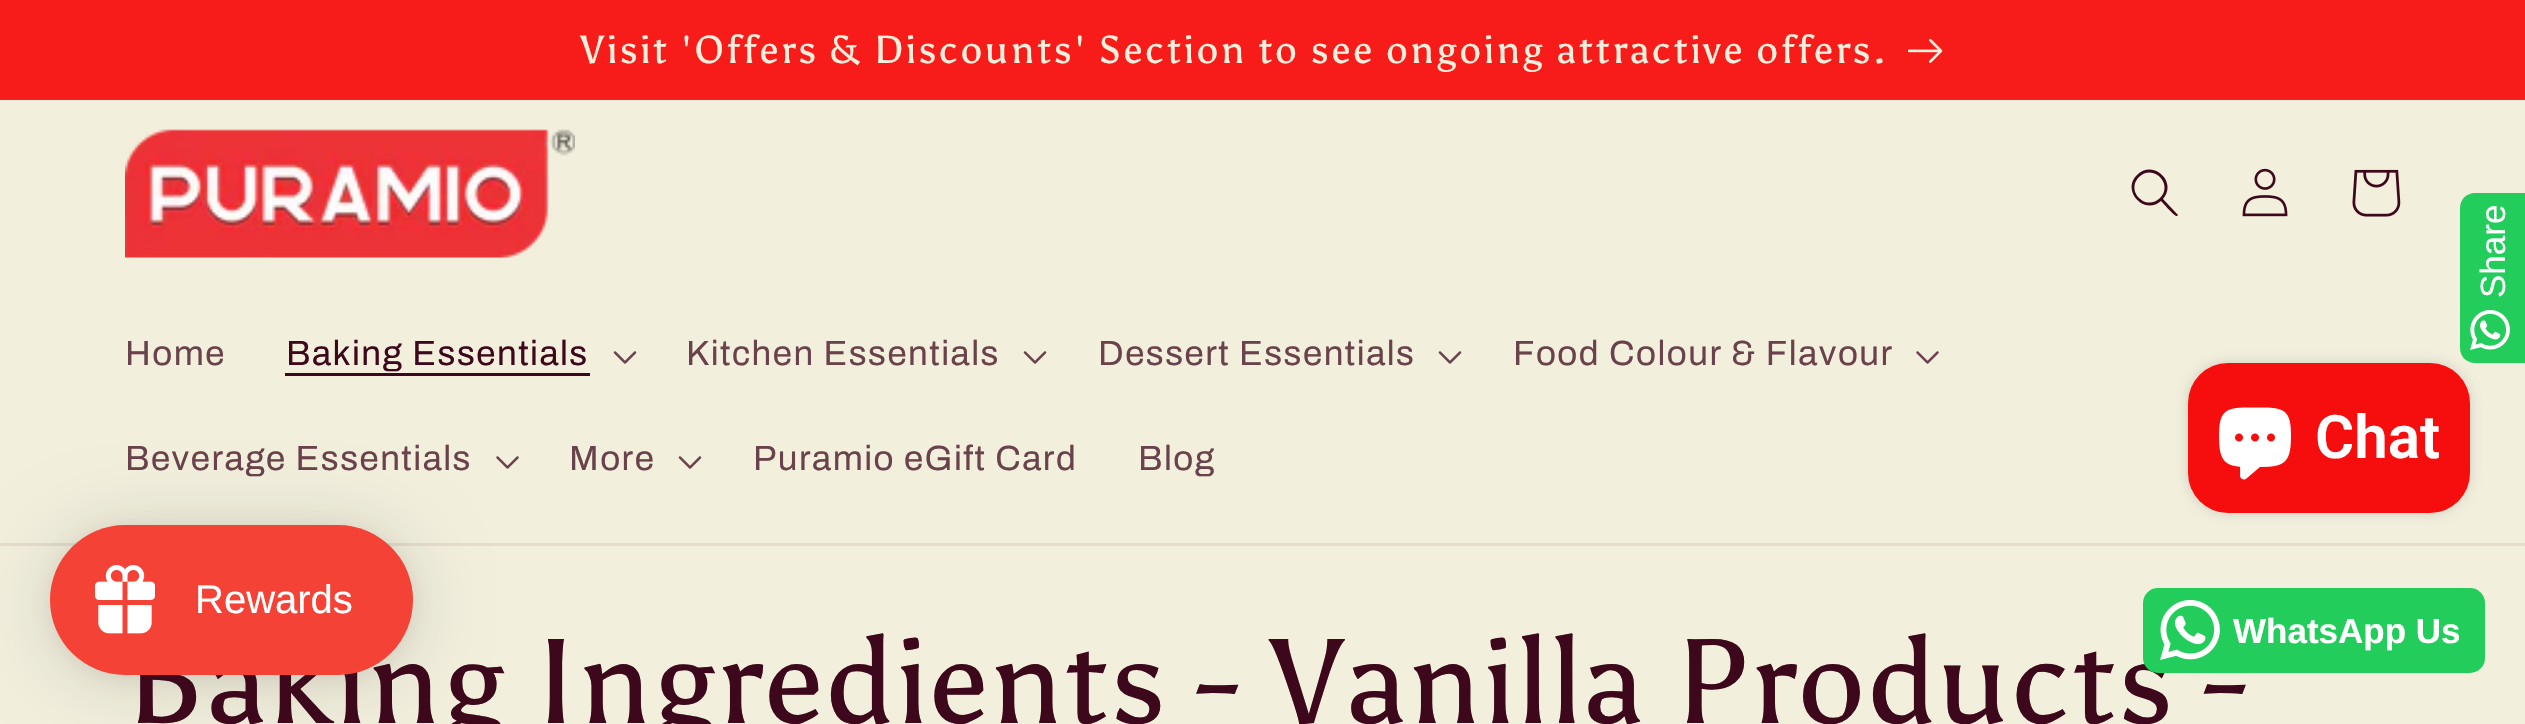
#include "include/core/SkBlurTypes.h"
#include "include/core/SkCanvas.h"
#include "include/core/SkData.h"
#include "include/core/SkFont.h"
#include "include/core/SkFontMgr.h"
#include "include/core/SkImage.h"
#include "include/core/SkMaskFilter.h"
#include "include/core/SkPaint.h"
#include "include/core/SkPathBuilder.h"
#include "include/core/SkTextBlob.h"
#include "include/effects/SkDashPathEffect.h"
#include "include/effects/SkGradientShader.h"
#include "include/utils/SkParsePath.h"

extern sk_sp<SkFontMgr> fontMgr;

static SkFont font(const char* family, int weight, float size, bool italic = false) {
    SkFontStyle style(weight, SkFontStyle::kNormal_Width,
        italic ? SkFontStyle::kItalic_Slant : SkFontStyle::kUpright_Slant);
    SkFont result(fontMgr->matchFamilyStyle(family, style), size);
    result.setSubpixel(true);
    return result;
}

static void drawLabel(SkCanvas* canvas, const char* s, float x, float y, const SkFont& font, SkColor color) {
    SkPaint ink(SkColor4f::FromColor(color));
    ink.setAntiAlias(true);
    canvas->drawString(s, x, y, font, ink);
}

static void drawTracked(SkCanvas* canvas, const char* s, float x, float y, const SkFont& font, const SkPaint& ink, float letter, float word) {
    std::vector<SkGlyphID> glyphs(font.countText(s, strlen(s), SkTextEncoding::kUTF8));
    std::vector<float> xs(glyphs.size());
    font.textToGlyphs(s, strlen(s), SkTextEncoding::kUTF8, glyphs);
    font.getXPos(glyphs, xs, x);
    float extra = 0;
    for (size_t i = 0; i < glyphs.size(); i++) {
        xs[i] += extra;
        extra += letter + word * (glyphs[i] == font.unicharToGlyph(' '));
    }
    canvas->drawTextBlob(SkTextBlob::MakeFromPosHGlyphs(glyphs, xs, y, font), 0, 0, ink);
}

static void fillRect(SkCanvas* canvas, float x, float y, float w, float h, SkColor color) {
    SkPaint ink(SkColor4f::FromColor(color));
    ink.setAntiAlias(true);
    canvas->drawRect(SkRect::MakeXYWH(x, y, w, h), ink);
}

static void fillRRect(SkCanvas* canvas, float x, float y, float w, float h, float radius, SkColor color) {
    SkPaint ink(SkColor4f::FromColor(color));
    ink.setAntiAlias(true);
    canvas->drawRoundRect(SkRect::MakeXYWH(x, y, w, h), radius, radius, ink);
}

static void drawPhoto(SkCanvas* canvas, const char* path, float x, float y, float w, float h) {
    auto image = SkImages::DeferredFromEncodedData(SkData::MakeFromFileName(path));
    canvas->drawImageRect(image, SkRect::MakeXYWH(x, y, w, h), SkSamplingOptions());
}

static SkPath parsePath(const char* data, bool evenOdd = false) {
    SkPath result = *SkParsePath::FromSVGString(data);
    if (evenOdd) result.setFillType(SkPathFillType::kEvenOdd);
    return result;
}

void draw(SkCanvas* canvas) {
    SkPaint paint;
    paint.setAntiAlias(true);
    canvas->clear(0xFFF2EFDD);
    fillRect(canvas, 0, 98, 2525, 2, 0xFFF61F1E);
    fillRect(canvas, 0, 0, 2525, 98, 0xFFF71B19);
    SkFont font1 = font("Asul", 400, 39);
    paint.setColor(0xFFF2EFDD);
    drawTracked(canvas, "Visit 'Offers & Discounts' Section to see ongoing attractive offers.", 580, 63, font1, paint, 2.5f, 0);
    drawPhoto(canvas, "assets/img1.png", 1908, 38, 35, 25);
    paint.setColor(0x26000000);
    paint.setMaskFilter(SkMaskFilter::MakeBlur(kNormal_SkBlurStyle, 6));
    canvas->drawRoundRect(SkRect::MakeXYWH(2188, 363, 282, 150), 40, 40, paint);
    paint.setMaskFilter(nullptr);
    paint.setColor(0xFF22CD5B);
    canvas->drawPath(parsePath("M2475 193H2525V363H2475C2466.5 363 2460 356.5 2460 348V208C2460 199.5 2466.5 193 2475 193Z"), paint);
    SkFont font2 = font("Liberation Sans", 400, 35);
    canvas->save();
    canvas->rotate(-90, 2505, 298);
    drawLabel(canvas, "Share", 2505, 298, font2, 0xFFFFFFFF);
    canvas->restore();
    drawPhoto(canvas, "assets/img2.png", 2470, 310, 40, 40);
    fillRect(canvas, 0, 543, 2525, 3, 0xFFE4DDCD);
    drawPhoto(canvas, "assets/img3.png", 125, 129, 450, 129);
    paint.setColor(0xFF3D081B);
    canvas->drawPath(parsePath("M2160 198C2146 212 2125 191 2139 177C2153 163 2174 184 2160 198ZM2161 201C2144 216 2121 190 2137 175C2153 159 2178 182 2163 199L2178 215L2177 216C2175 217 2163 203 2161 201Z", true), paint);
    drawPhoto(canvas, "assets/img4.png", 2242, 168, 46, 49);
    drawPhoto(canvas, "assets/img5.png", 2352, 169, 49, 48);
    SkFont font3 = font("Archivo", 400, 35);
    paint.setColor(0xFF6A424C);
    drawTracked(canvas, "Home", 125, 365, font3, paint, 1.5f, 0);
    paint.setColor(0xFF3D081B);
    drawTracked(canvas, "Baking Essentials", 286, 365, font3, paint, 1.5f, 0);
    fillRect(canvas, 285, 373, 305, 3, 0xFF3D081B);
    drawPhoto(canvas, "assets/img6.png", 613, 351, 24, 13);
    paint.setColor(0xFF6A424C);
    drawTracked(canvas, "Kitchen Essentials", 686, 365, font3, paint, 1.5f, 0);
    drawPhoto(canvas, "assets/img6.png", 1023, 351, 24, 13);
    drawTracked(canvas, "Dessert Essentials", 1098, 365, font3, paint, 1.5f, 0);
    drawPhoto(canvas, "assets/img6.png", 1438, 351, 24, 13);
    drawTracked(canvas, "Food Colour & Flavour", 1513, 365, font3, paint, 1.5f, 0);
    drawPhoto(canvas, "assets/img7.png", 1916, 351, 23, 13);
    drawTracked(canvas, "Beverage Essentials", 125, 470, font3, paint, 1.5f, 0);
    drawPhoto(canvas, "assets/img7.png", 496, 456, 23, 13);
    drawTracked(canvas, "More", 569, 470, font3, paint, 1.5f, 0);
    drawPhoto(canvas, "assets/img6.png", 678, 456, 24, 13);
    drawTracked(canvas, "Puramio eGift Card", 753, 470, font3, paint, 1.5f, 0);
    drawTracked(canvas, "Blog", 1138, 470, font3, paint, 1.5f, 0);
    fillRRect(canvas, 2188, 363, 282, 150, 40, 0xFFF60D0D);
    drawPhoto(canvas, "assets/img8.png", 2219, 407, 72, 73);
    SkFont font4 = font("Roboto", 600, 60);
    drawLabel(canvas, "Chat", 2315, 458, font4, 0xFFFFFFFF);
    paint.setColor(0x26000000);
    paint.setMaskFilter(SkMaskFilter::MakeBlur(kNormal_SkBlurStyle, 37.5f));
    canvas->drawRoundRect(SkRect::MakeXYWH(50, 530, 363, 150), 75, 75, paint);
    paint.setMaskFilter(nullptr);
    paint.setColor(0x0D000000);
    paint.setMaskFilter(SkMaskFilter::MakeBlur(kNormal_SkBlurStyle, 7.5f));
    canvas->drawRoundRect(SkRect::MakeXYWH(50, 528, 363, 150), 75, 75, paint);
    paint.setMaskFilter(nullptr);
    SkFont font5 = font("Asul", 400, 120);
    paint.setColor(0xFF3D081B);
    drawTracked(canvas, "Baking Ingredients - Vanilla Products -", 125, 723, font5, paint, 1.8f, 0);
    fillRRect(canvas, 50, 525, 363, 150, 75, 0xFFF44336);
    drawPhoto(canvas, "assets/img9.png", 95, 565, 60, 69);
    SkFont font6 = font("Liberation Sans", 400, 40);
    drawLabel(canvas, "Rewards", 195, 613, font6, 0xFFFFFFFF);
    fillRRect(canvas, 2143, 588, 342, 85, 15, 0xFF22CD5B);
    drawPhoto(canvas, "assets/img10.png", 2160, 600, 60, 60);
    SkFont font7 = font("Liberation Sans", 700, 35);
    drawLabel(canvas, "WhatsApp Us", 2233, 643, font7, 0xFFFFFFFF);
}
